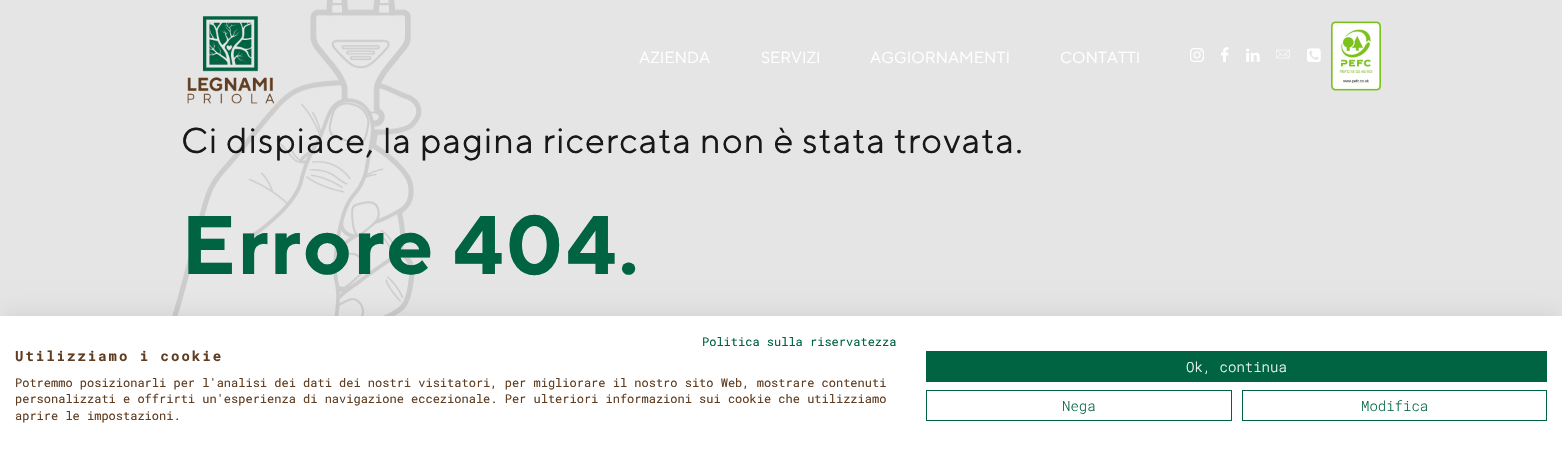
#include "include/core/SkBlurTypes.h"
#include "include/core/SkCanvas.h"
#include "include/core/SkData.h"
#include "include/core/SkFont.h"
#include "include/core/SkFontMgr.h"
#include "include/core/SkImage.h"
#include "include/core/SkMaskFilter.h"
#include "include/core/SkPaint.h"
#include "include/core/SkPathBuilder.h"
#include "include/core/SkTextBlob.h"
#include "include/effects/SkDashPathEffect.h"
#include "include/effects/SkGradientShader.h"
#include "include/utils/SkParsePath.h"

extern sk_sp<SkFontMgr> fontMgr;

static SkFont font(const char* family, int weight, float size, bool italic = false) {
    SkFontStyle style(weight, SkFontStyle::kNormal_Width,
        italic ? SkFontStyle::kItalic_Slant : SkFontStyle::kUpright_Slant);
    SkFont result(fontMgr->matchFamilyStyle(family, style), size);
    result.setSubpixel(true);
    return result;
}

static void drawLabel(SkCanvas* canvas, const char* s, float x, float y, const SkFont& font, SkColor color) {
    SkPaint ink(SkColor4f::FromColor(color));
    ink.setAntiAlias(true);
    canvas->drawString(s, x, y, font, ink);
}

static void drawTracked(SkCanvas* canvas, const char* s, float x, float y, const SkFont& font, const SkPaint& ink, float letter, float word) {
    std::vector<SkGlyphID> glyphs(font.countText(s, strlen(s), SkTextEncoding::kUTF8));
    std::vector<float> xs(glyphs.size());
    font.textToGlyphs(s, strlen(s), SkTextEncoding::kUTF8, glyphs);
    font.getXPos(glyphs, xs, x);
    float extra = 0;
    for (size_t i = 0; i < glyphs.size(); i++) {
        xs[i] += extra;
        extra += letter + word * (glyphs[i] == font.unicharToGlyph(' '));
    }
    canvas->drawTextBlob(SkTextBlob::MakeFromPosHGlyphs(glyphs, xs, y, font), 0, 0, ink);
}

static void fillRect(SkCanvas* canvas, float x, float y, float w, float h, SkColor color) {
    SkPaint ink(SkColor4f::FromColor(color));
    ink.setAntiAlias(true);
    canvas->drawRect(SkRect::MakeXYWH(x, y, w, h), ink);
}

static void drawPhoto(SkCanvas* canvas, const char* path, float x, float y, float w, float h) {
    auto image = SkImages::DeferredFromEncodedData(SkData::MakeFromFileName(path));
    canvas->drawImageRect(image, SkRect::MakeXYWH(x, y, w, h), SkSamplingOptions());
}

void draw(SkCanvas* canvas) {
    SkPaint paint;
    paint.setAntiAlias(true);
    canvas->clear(0xFFE5E5E5);
    drawPhoto(canvas, "assets/img8.png", 172, 0, 250, 316);
    drawPhoto(canvas, "assets/img1.png", 187, 16, 88, 88);
    SkFont font1 = font("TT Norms", 400, 16);
    drawLabel(canvas, "AZIENDA", 639, 63, font1, 0xFFFFFFFF);
    drawLabel(canvas, "SERVIZI", 761, 63, font1, 0xFFFFFFFF);
    drawLabel(canvas, "AGGIORNAMENTI", 870, 63, font1, 0xFFFFFFFF);
    drawLabel(canvas, "CONTATTI", 1060, 63, font1, 0xFFFFFFFF);
    drawPhoto(canvas, "assets/img2.png", 1190, 48, 14, 14);
    drawPhoto(canvas, "assets/img3.png", 1221, 47, 8, 15);
    drawPhoto(canvas, "assets/img4.png", 1246, 48, 14, 14);
    drawPhoto(canvas, "assets/img5.png", 1276, 49, 14, 10);
    drawPhoto(canvas, "assets/img6.png", 1307, 48, 14, 14);
    drawPhoto(canvas, "assets/img7.png", 1331, 21, 50, 70);
    SkFont font2 = font("TT Norms", 400, 36);
    paint.setColor(0xFF181818);
    drawTracked(canvas, "Ci dispiace, la pagina ricercata non è stata trovata.", 181, 153, font2, paint, 1, 0);
    SkFont font3 = font("TT Norms", 700, 82.75f);
    paint.setColor(0xFF006341);
    drawTracked(canvas, "Errore 404.", 181, 274, font3, paint, 2, -2);
    paint.setColor(0x1A000000);
    paint.setMaskFilter(SkMaskFilter::MakeBlur(kNormal_SkBlurStyle, 12));
    canvas->drawRect(SkRect::MakeXYWH(0, 316, 1562, 135), paint);
    paint.setMaskFilter(nullptr);
    fillRect(canvas, 0, 316, 1562, 135, 0xFFFFFFFF);
    SkFont font4 = font("Roboto Mono", 400, 12);
    drawLabel(canvas, "Politica sulla riservatezza", 702, 346, font4, 0xFF006341);
    SkFont font5 = font("Roboto Mono", 700, 14);
    paint.setColor(0xFF603D20);
    drawTracked(canvas, "Utilizziamo i cookie", 15, 361, font5, paint, 2, 0);
    drawLabel(canvas, "Potremmo posizionarli per l'analisi dei dati dei nostri visitatori, per migliorare il nostro sito Web, mostrare contenuti", 15, 387, font4, 0xFF603D20);
    drawLabel(canvas, "personalizzati e offrirti un'esperienza di navigazione eccezionale. Per ulteriori informazioni sui cookie che utilizziamo", 15, 403, font4, 0xFF603D20);
    drawLabel(canvas, "aprire le impostazioni.", 15, 420, font4, 0xFF603D20);
    fillRect(canvas, 926, 351, 621, 31, 0xFF006341);
    SkFont font6 = font("Roboto Mono", 300, 14);
    drawLabel(canvas, "Ok, continua", 1186, 372, font6, 0xFFFFFFFF);
    paint.setStroke(true);
    paint.setStrokeWidth(1);
    paint.setColor(0xFF006341);
    canvas->drawRect(SkRect::MakeXYWH(926.5f, 390.5f, 305, 30), paint);
    drawLabel(canvas, "Nega", 1062, 411, font6, 0xFF006341);
    canvas->drawRect(SkRect::MakeXYWH(1242.5f, 390.5f, 304, 30), paint);
    drawLabel(canvas, "Modifica", 1361, 411, font6, 0xFF006341);
}
